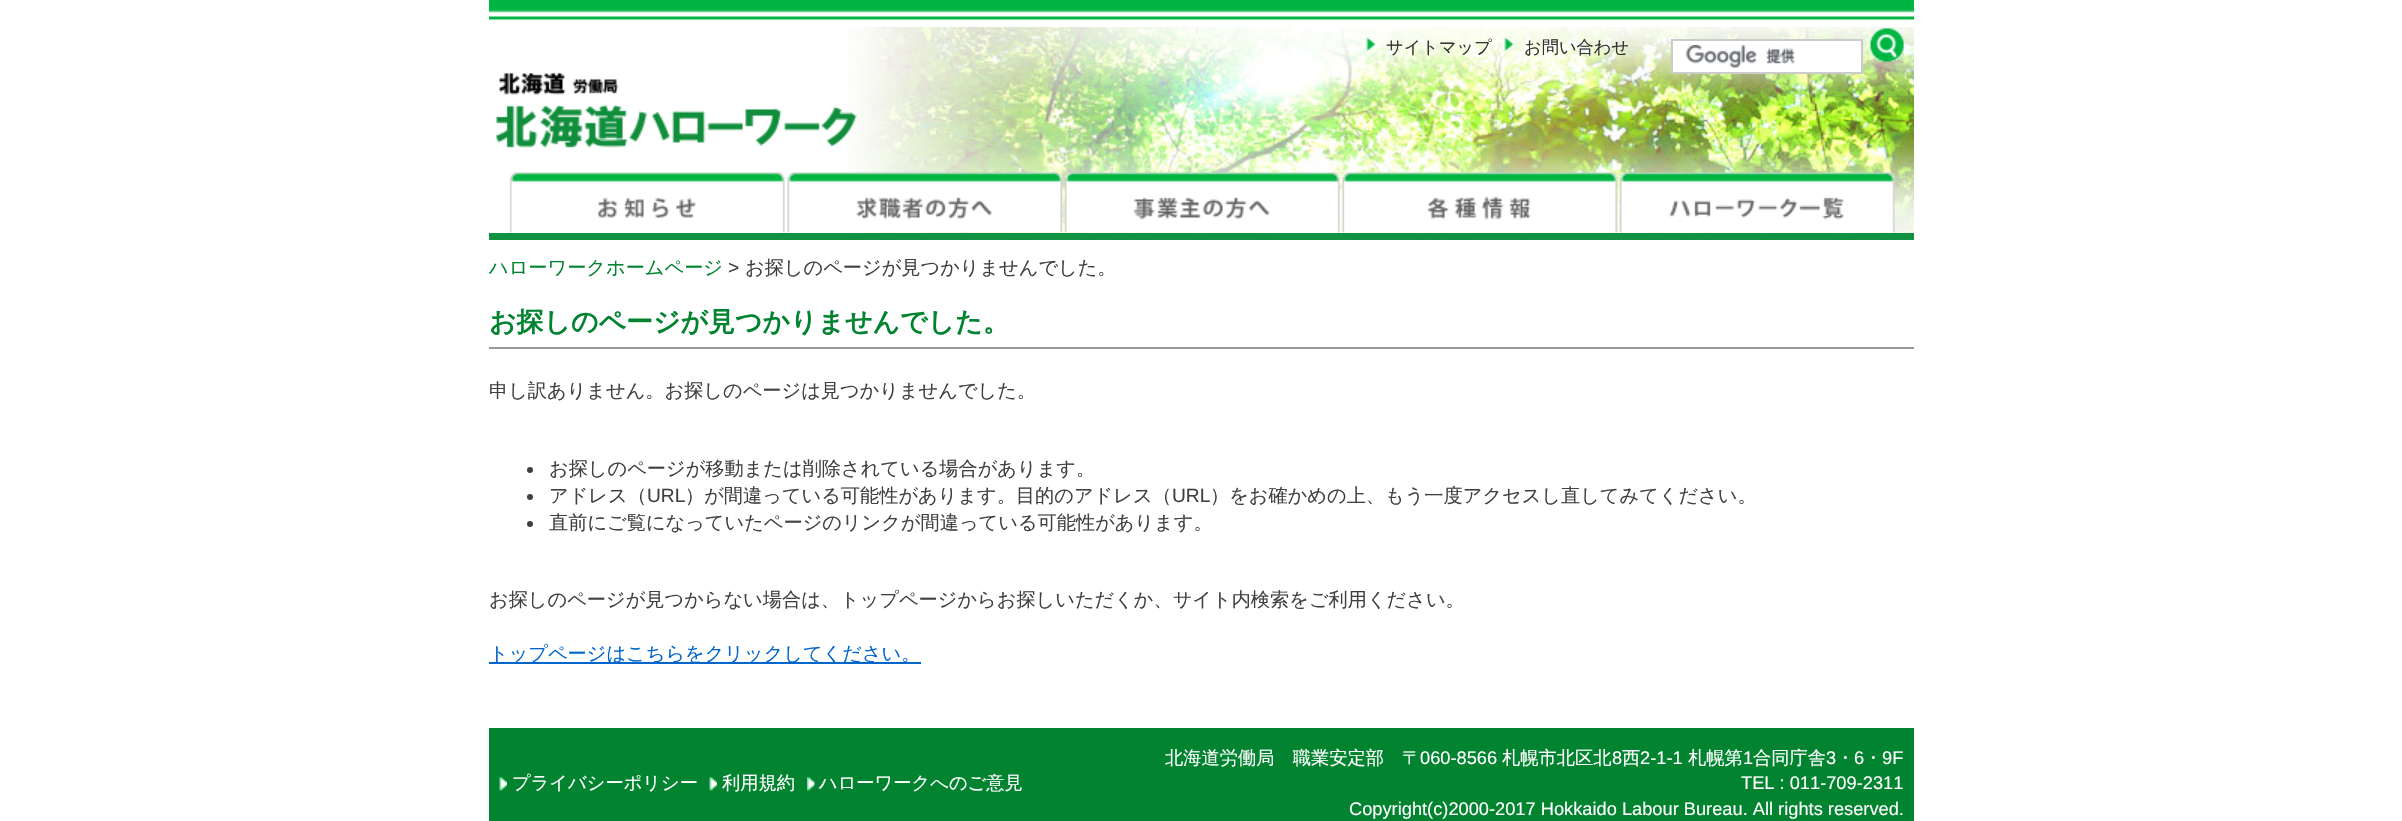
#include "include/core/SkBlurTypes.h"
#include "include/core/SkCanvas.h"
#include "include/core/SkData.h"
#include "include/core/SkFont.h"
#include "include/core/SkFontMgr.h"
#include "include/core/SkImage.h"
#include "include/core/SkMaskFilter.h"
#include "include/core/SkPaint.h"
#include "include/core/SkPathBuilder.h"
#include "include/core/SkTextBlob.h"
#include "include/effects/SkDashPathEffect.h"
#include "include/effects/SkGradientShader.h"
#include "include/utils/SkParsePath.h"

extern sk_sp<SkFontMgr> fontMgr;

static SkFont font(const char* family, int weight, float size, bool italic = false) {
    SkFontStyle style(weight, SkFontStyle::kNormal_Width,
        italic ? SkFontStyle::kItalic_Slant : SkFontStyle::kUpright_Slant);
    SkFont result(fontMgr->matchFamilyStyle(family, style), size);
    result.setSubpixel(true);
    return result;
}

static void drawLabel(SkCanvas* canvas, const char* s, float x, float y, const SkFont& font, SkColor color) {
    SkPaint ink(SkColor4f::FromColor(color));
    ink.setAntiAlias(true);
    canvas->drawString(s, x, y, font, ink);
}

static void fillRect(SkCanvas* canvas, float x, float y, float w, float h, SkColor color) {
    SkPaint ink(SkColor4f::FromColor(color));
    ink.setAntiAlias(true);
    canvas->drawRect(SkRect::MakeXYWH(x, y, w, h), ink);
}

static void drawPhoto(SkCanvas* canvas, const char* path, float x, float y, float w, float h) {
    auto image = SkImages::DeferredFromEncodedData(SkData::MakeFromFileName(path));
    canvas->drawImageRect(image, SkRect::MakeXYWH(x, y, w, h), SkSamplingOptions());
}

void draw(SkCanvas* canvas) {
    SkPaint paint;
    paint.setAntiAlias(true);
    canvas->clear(0xFFFFFFFF);
    drawPhoto(canvas, "assets/img1.png", 489, 0, 1425, 20);
    drawPhoto(canvas, "assets/img2.png", 848, 27, 1066, 206);
    drawPhoto(canvas, "assets/img3.png", 1366, 37, 10, 15);
    SkFont font1 = font("WenQuanYi Zen Hei", 500, 17.25f);
    drawLabel(canvas, "サイトマップ", 1386, 53, font1, 0xFF333333);
    drawPhoto(canvas, "assets/img4.png", 1504, 37, 10, 15);
    drawLabel(canvas, "お問い合わせ", 1524, 53, font1, 0xFF333333);
    fillRect(canvas, 1673, 41, 188, 31, 0xFFFFFFFF);
    drawPhoto(canvas, "assets/img5.png", 1686, 45, 109, 23);
    paint.setStroke(true);
    paint.setStrokeWidth(2);
    paint.setColor(0xFFCCCCCC);
    canvas->drawRect(SkRect::MakeXYWH(1672, 40, 190, 33), paint);
    drawPhoto(canvas, "assets/img6.png", 1870, 28, 34, 34);
    drawPhoto(canvas, "assets/img7.png", 495, 72, 362, 76);
    fillRect(canvas, 489, 233, 1425, 7, 0xFF129142);
    drawPhoto(canvas, "assets/img8.png", 509, 172, 276, 61);
    drawPhoto(canvas, "assets/img9.png", 787, 172, 276, 61);
    drawPhoto(canvas, "assets/img10.png", 1064, 172, 276, 61);
    drawPhoto(canvas, "assets/img11.png", 1342, 172, 276, 61);
    drawPhoto(canvas, "assets/img12.png", 1619, 172, 276, 61);
    SkFont font2 = font("WenQuanYi Zen Hei", 500, 19.2f);
    drawLabel(canvas, "ハローワークホームページ", 489, 274, font2, 0xFF018330);
    SkFont font3 = font("Liberation Sans", 400, 19.2f);
    drawLabel(canvas, ">", 728, 274, font3, 0xFF404040);
    drawLabel(canvas, "お探しのページが見つかりませんでした。", 745, 274, font2, 0xFF404040);
    fillRect(canvas, 489, 347, 1425, 2, 0xFF999999);
    SkFont font4 = font("WenQuanYi Zen Hei", 700, 26.9f);
    drawLabel(canvas, "お探しのページが見つかりませんでした。", 489, 331, font4, 0xFF018330);
    drawLabel(canvas, "申し訳ありません。お探しのページは見つかりませんでした。", 489, 397, font2, 0xFF404040);
    paint.setStroke(false);
    paint.setColor(0xFF404040);
    canvas->drawCircle(530, 470, 3, paint);
    drawLabel(canvas, "お探しのページが移動または削除されている場合があります。", 549, 475, font2, 0xFF404040);
    canvas->drawCircle(530, 497, 3, paint);
    drawLabel(canvas, "アドレス（", 549, 502, font2, 0xFF404040);
    drawLabel(canvas, "URL", 647, 502, font3, 0xFF404040);
    drawLabel(canvas, "）が間違っている可能性があります。目的のアドレス（", 685, 502, font2, 0xFF404040);
    drawLabel(canvas, "URL", 1172, 502, font3, 0xFF404040);
    drawLabel(canvas, "）をお確かめの上、もう一度アクセスし直してみてください。", 1210, 502, font2, 0xFF404040);
    canvas->drawCircle(530, 524, 3, paint);
    drawLabel(canvas, "直前にご覧になっていたページのリンクが間違っている可能性があります。", 549, 529, font2, 0xFF404040);
    drawLabel(canvas, "お探しのページが見つからない場合は、トップページからお探しいただくか、サイト内検索をご利用ください。", 489, 606, font2, 0xFF404040);
    fillRect(canvas, 489, 662, 432, 2, 0xFF0066CC);
    drawLabel(canvas, "トップページはこちらをクリックしてください。", 489, 660, font2, 0xFF0066CC);
    fillRect(canvas, 489, 728, 1425, 93, 0xFF018330);
    drawPhoto(canvas, "assets/img13.png", 499, 777, 8, 14);
    SkFont font5 = font("WenQuanYi Zen Hei", 500, 18.25f);
    drawLabel(canvas, "プライバシーポリシー", 512, 789, font5, 0xFFFFFFFF);
    drawPhoto(canvas, "assets/img14.png", 709, 777, 8, 14);
    drawLabel(canvas, "利用規約", 722, 789, font5, 0xFFFFFFFF);
    drawPhoto(canvas, "assets/img15.png", 807, 777, 8, 14);
    drawLabel(canvas, "ハローワークへのご意見", 819, 789, font5, 0xFFFFFFFF);
    drawLabel(canvas, "北海道労働局　職業安定部　〒", 1165, 764, font5, 0xFFFFFFFF);
    SkFont font6 = font("Liberation Sans", 400, 18.25f);
    drawLabel(canvas, "060-8566", 1420, 764, font6, 0xFFFFFFFF);
    drawLabel(canvas, "札幌市北区北", 1502, 764, font5, 0xFFFFFFFF);
    drawLabel(canvas, "8", 1612, 764, font6, 0xFFFFFFFF);
    drawLabel(canvas, "西", 1622, 764, font5, 0xFFFFFFFF);
    drawLabel(canvas, "2-1-1", 1640, 764, font6, 0xFFFFFFFF);
    drawLabel(canvas, "札幌第", 1688, 764, font5, 0xFFFFFFFF);
    drawLabel(canvas, "1", 1743, 764, font6, 0xFFFFFFFF);
    drawLabel(canvas, "合同庁舎", 1753, 764, font5, 0xFFFFFFFF);
    drawLabel(canvas, "3", 1826, 764, font6, 0xFFFFFFFF);
    drawLabel(canvas, "・", 1836, 764, font5, 0xFFFFFFFF);
    drawLabel(canvas, "6", 1854, 764, font6, 0xFFFFFFFF);
    drawLabel(canvas, "・", 1864, 764, font5, 0xFFFFFFFF);
    drawLabel(canvas, "9F", 1882, 764, font6, 0xFFFFFFFF);
    drawLabel(canvas, "TEL : 011-709-2311", 1741, 789, font6, 0xFFFFFFFF);
    drawLabel(canvas, "Copyright(c)2000-2017 Hokkaido Labour Bureau. All rights reserved.", 1349, 815, font6, 0xFFFFFFFF);
}
